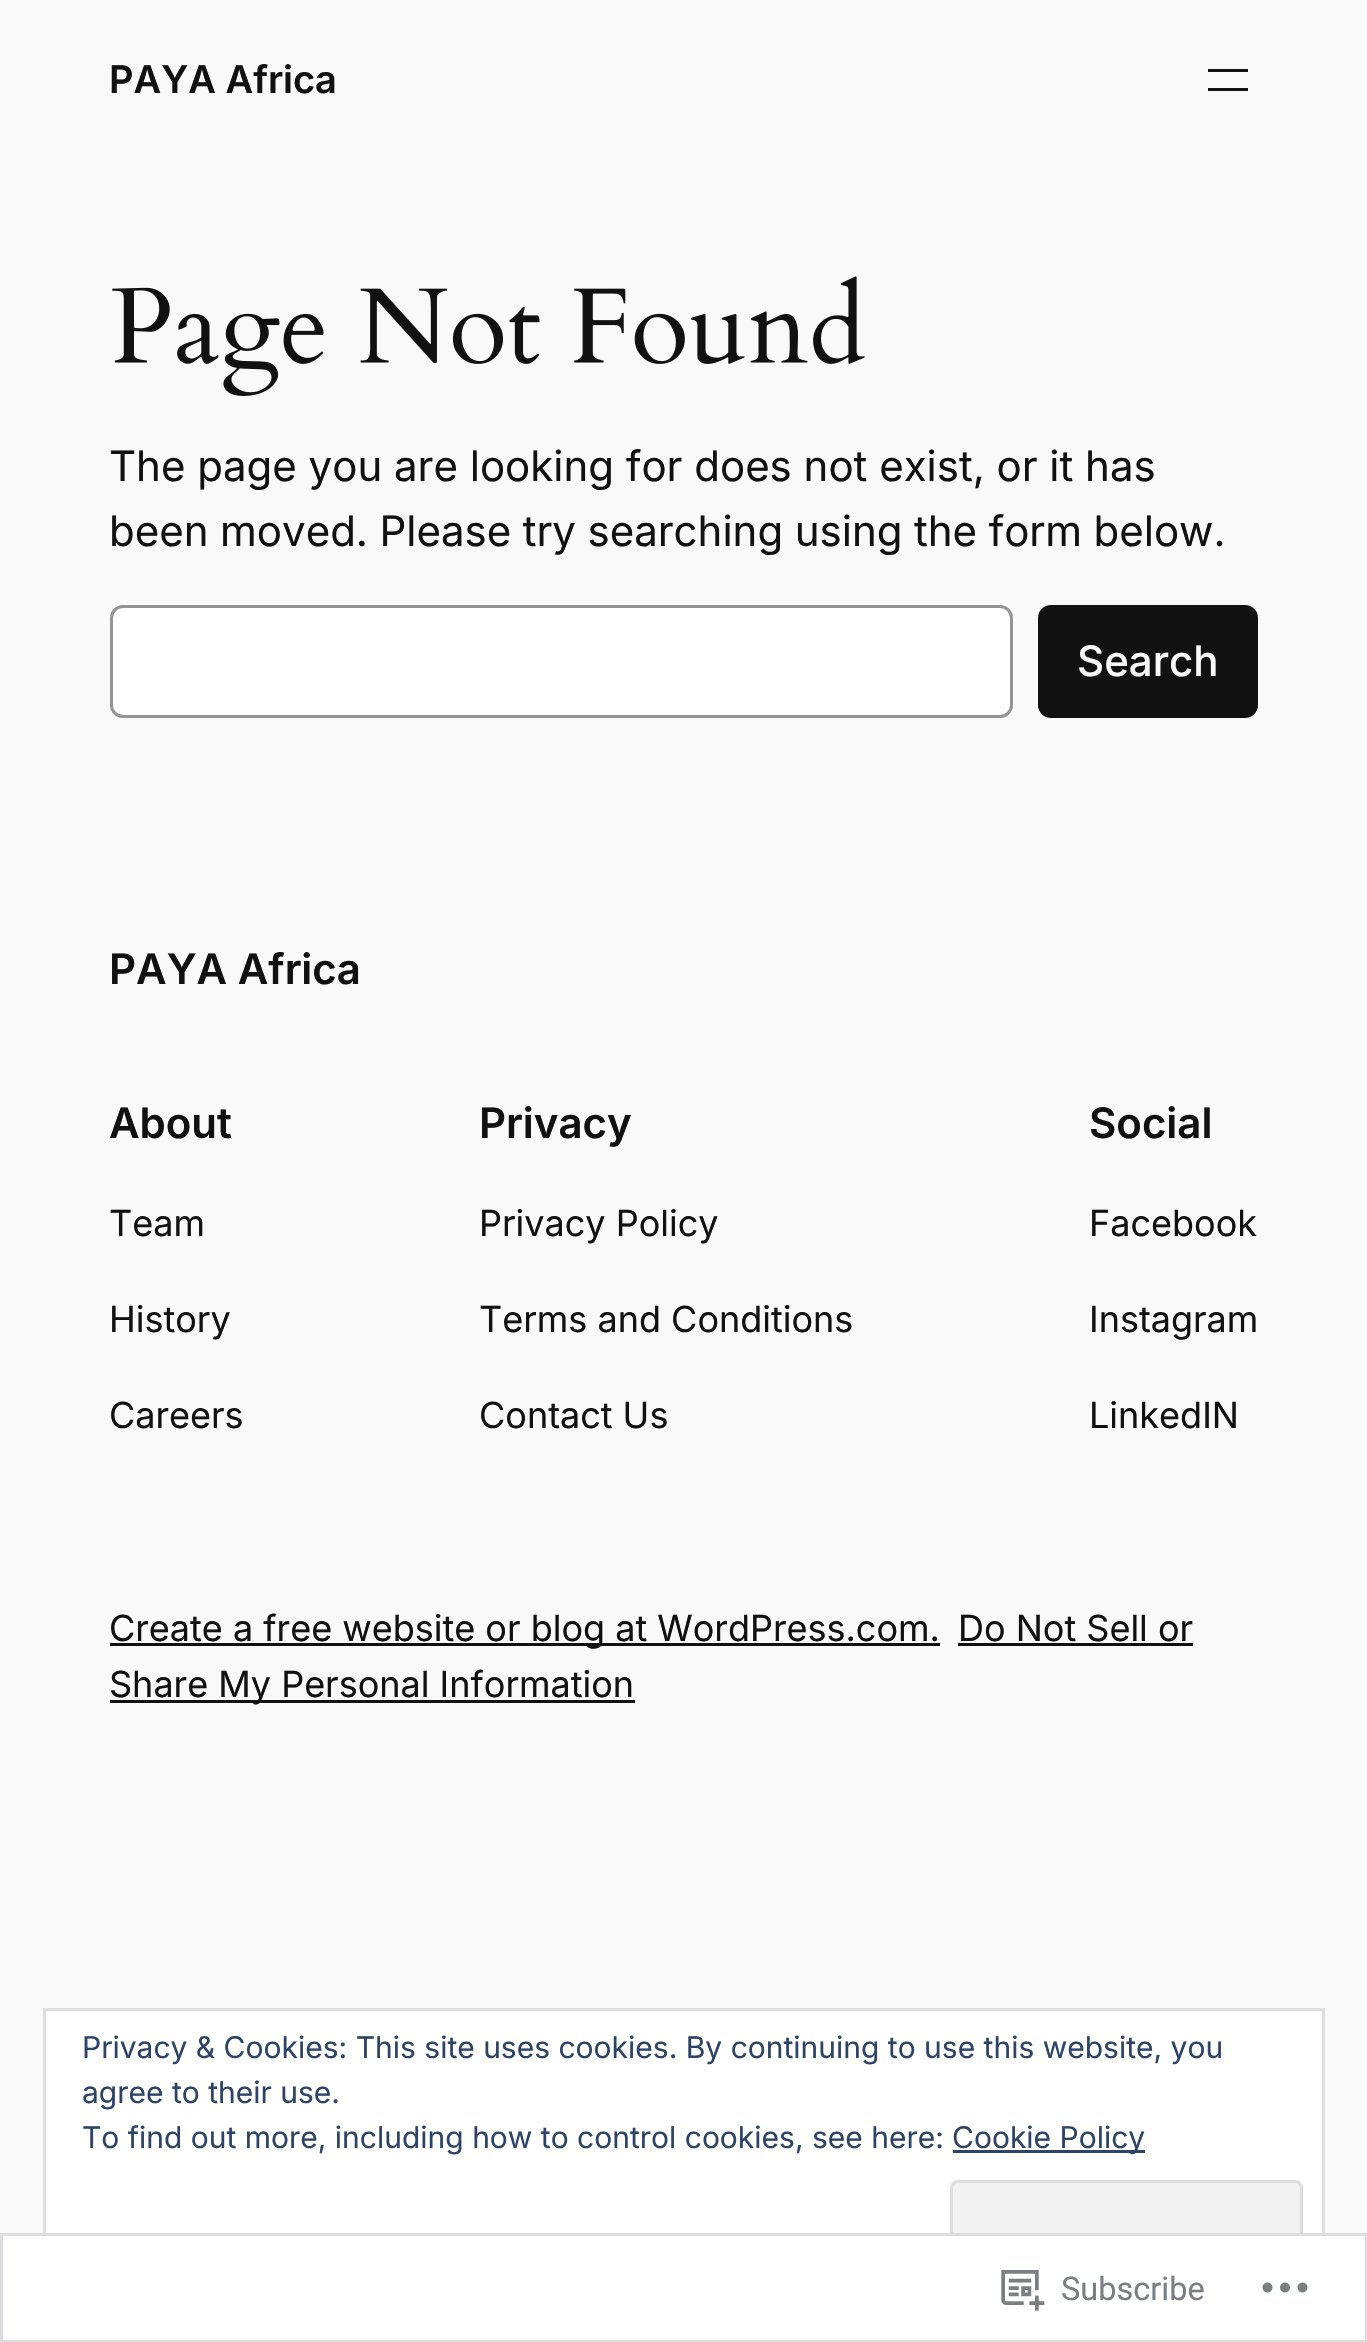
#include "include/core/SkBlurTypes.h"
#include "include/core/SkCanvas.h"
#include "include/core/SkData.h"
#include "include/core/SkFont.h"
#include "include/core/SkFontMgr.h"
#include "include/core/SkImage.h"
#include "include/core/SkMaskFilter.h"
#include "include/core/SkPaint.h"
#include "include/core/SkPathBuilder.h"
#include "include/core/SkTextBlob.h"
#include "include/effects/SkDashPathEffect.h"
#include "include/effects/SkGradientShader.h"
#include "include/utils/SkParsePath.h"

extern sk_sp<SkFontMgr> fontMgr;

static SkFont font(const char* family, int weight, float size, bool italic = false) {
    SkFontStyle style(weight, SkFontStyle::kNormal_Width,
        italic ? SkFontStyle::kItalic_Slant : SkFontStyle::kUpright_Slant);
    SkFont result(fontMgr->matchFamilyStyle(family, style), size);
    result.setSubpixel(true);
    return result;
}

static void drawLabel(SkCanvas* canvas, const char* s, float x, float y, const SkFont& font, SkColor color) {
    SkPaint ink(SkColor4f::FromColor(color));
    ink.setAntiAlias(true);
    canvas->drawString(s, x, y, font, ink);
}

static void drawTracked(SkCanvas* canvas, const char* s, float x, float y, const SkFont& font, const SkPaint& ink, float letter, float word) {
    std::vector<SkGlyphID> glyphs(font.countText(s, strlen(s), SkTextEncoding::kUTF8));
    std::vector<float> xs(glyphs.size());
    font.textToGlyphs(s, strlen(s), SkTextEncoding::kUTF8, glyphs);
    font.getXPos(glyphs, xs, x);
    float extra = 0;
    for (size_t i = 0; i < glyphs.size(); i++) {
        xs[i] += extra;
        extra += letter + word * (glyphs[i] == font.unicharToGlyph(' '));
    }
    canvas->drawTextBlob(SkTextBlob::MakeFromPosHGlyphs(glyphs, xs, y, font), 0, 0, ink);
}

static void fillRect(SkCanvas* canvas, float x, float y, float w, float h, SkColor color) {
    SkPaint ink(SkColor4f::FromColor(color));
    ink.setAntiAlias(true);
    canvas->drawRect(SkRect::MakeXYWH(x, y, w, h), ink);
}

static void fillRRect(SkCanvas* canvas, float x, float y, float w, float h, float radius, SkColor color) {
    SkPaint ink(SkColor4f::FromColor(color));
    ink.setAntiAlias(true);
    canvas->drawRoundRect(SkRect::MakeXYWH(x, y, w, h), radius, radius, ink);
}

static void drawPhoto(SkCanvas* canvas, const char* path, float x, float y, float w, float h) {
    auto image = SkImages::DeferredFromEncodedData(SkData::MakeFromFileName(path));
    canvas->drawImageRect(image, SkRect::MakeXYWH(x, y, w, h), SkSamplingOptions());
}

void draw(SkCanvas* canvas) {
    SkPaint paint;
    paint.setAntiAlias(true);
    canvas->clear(0xFFF9F9F9);
    SkFont font1 = font("Inter", 600, 38);
    drawLabel(canvas, "PAYA Africa", 109, 93, font1, 0xFF111111);
    fillRect(canvas, 1208, 69, 40, 3, 0xFF111111);
    fillRect(canvas, 1208, 88, 40, 3, 0xFF111111);
    drawPhoto(canvas, "assets/img1.png", 112, 276, 753, 120);
    SkFont font2 = font("Inter", 400, 42);
    drawLabel(canvas, "The page you are looking for does not exist, or it has", 109, 481, font2, 0xFF111111);
    paint.setColor(0xFF111111);
    drawTracked(canvas, "been moved. Please try searching using the form below.", 109, 546, font2, paint, 0, -0.25f);
    paint.setColor(0xFFFFFFFF);
    canvas->drawRoundRect(SkRect::MakeXYWH(111.5f, 606.5f, 900, 110), 11.5f, 11.5f, paint);
    paint.setStroke(true);
    paint.setStrokeWidth(3);
    paint.setColor(0xFF949494);
    canvas->drawRoundRect(SkRect::MakeXYWH(111.5f, 606.5f, 900, 110), 11.5f, 11.5f, paint);
    fillRRect(canvas, 1038, 605, 220, 113, 13, 0xFF111111);
    SkFont font3 = font("Inter", 500, 42);
    drawLabel(canvas, "Search", 1077, 676, font3, 0xFFF9F9F9);
    SkFont font4 = font("Inter", 600, 42);
    drawLabel(canvas, "PAYA Africa", 109, 984, font4, 0xFF111111);
    drawLabel(canvas, "About", 109, 1138, font4, 0xFF111111);
    SkFont font5 = font("Inter", 400, 36);
    drawLabel(canvas, "Team", 109, 1236, font5, 0xFF111111);
    drawLabel(canvas, "History", 109, 1332, font5, 0xFF111111);
    drawLabel(canvas, "Careers", 109, 1428, font5, 0xFF111111);
    drawLabel(canvas, "Privacy", 479, 1138, font4, 0xFF111111);
    drawLabel(canvas, "Privacy Policy", 479, 1236, font5, 0xFF111111);
    drawLabel(canvas, "Terms and Conditions", 479, 1332, font5, 0xFF111111);
    drawLabel(canvas, "Contact Us", 479, 1428, font5, 0xFF111111);
    drawLabel(canvas, "Social", 1089, 1138, font4, 0xFF111111);
    drawLabel(canvas, "Facebook", 1089, 1236, font5, 0xFF111111);
    drawLabel(canvas, "Instagram", 1089, 1332, font5, 0xFF111111);
    drawLabel(canvas, "LinkedIN", 1089, 1428, font5, 0xFF111111);
    fillRect(canvas, 110, 1643, 830, 3, 0xFF111111);
    drawLabel(canvas, "Create a free website or blog at WordPress.com.", 109, 1641, font5, 0xFF111111);
    drawLabel(canvas, "Do Not Sell or", 958, 1641, font5, 0xFF111111);
    fillRect(canvas, 958, 1643, 235, 3, 0xFF111111);
    fillRect(canvas, 110, 1700, 525, 3, 0xFF111111);
    drawLabel(canvas, "Share My Personal Information", 109, 1697, font5, 0xFF111111);
    paint.setStroke(false);
    paint.setColor(0xFFFFFFFF);
    canvas->drawRect(SkRect::MakeXYWH(44.5f, 2009.5f, 1279, 289), paint);
    paint.setStroke(true);
    paint.setColor(0xFFDEDEDE);
    canvas->drawRect(SkRect::MakeXYWH(44.5f, 2009.5f, 1279, 289), paint);
    SkFont font6 = font("Inter", 400, 30);
    drawLabel(canvas, "Privacy & Cookies: This site uses cookies. By continuing to use this website, you", 82, 2058, font6, 0xFF2E4467);
    drawLabel(canvas, "agree to their use.", 82, 2103, font6, 0xFF2E4467);
    drawLabel(canvas, "To find out more, including how to control cookies, see here:", 82, 2148, font6, 0xFF2E4467);
    fillRect(canvas, 953, 2150, 192, 3, 0xFF2E4467);
    drawLabel(canvas, "Cookie Policy", 952, 2148, font6, 0xFF2E4467);
    paint.setStroke(false);
    paint.setColor(0xFFF3F3F3);
    canvas->drawRoundRect(SkRect::MakeXYWH(951.5f, 2181.5f, 350, 95), 6.5f, 6.5f, paint);
    paint.setStroke(true);
    paint.setColor(0xFFDEDEDE);
    canvas->drawRoundRect(SkRect::MakeXYWH(951.5f, 2181.5f, 350, 95), 6.5f, 6.5f, paint);
    fillRect(canvas, 0, 2233, 1367, 109, 0xFAFFFFFF);
    paint.setColor(0xFADCDCDE);
    canvas->drawRect(SkRect::MakeXYWH(1.5f, 2234.5f, 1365, 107), paint);
    drawPhoto(canvas, "assets/img2.png", 1001, 2270, 44, 41);
    SkFont font7 = font("Roboto", 400, 32.5f);
    drawLabel(canvas, "Subscribe", 1061, 2300, font7, 0xFF7B7F84);
    drawPhoto(canvas, "assets/img3.png", 1262, 2282, 46, 11);
}
